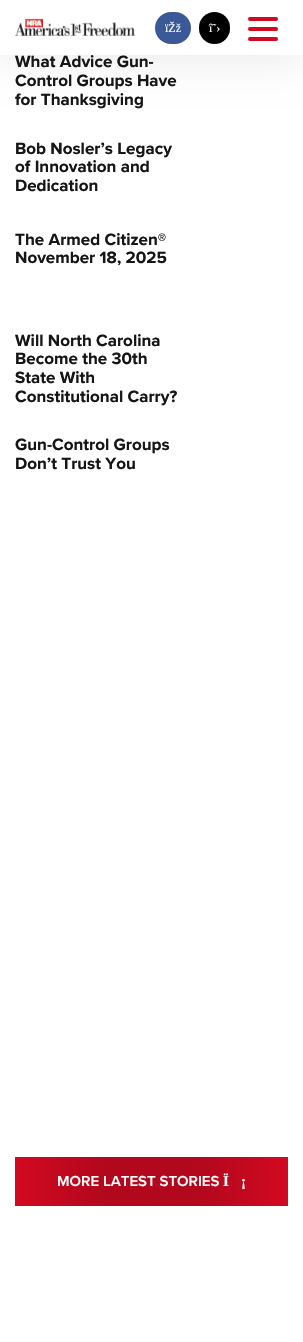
#include "include/core/SkBlurTypes.h"
#include "include/core/SkCanvas.h"
#include "include/core/SkData.h"
#include "include/core/SkFont.h"
#include "include/core/SkFontMgr.h"
#include "include/core/SkImage.h"
#include "include/core/SkMaskFilter.h"
#include "include/core/SkPaint.h"
#include "include/core/SkPathBuilder.h"
#include "include/core/SkTextBlob.h"
#include "include/effects/SkDashPathEffect.h"
#include "include/effects/SkGradientShader.h"
#include "include/utils/SkParsePath.h"

extern sk_sp<SkFontMgr> fontMgr;

static SkFont font(const char* family, int weight, float size, bool italic = false) {
    SkFontStyle style(weight, SkFontStyle::kNormal_Width,
        italic ? SkFontStyle::kItalic_Slant : SkFontStyle::kUpright_Slant);
    SkFont result(fontMgr->matchFamilyStyle(family, style), size);
    result.setSubpixel(true);
    return result;
}

static void drawLabel(SkCanvas* canvas, const char* s, float x, float y, const SkFont& font, SkColor color) {
    SkPaint ink(SkColor4f::FromColor(color));
    ink.setAntiAlias(true);
    canvas->drawString(s, x, y, font, ink);
}

static void fillRect(SkCanvas* canvas, float x, float y, float w, float h, SkColor color) {
    SkPaint ink(SkColor4f::FromColor(color));
    ink.setAntiAlias(true);
    canvas->drawRect(SkRect::MakeXYWH(x, y, w, h), ink);
}

static void fillRRect(SkCanvas* canvas, float x, float y, float w, float h, float radius, SkColor color) {
    SkPaint ink(SkColor4f::FromColor(color));
    ink.setAntiAlias(true);
    canvas->drawRoundRect(SkRect::MakeXYWH(x, y, w, h), radius, radius, ink);
}

static void drawPhoto(SkCanvas* canvas, const char* path, float x, float y, float w, float h) {
    auto image = SkImages::DeferredFromEncodedData(SkData::MakeFromFileName(path));
    canvas->drawImageRect(image, SkRect::MakeXYWH(x, y, w, h), SkSamplingOptions());
}

void draw(SkCanvas* canvas) {
    SkPaint paint;
    paint.setAntiAlias(true);
    canvas->clear(0xFFFFFFFF);
    paint.setColor(0x14000000);
    paint.setMaskFilter(SkMaskFilter::MakeBlur(kNormal_SkBlurStyle, 20));
    canvas->drawRect(SkRect::MakeXYWH(0, 6, 303, 55), paint);
    paint.setMaskFilter(nullptr);
    fillRect(canvas, 0, 0, 303, 55, 0xFFFFFFFF);
    drawPhoto(canvas, "assets/img1.png", 15, 18, 120, 18);
    fillRRect(canvas, 155, 12, 36, 32, 16, 0xFF3B5998);
    SkFont font1 = font("Liberation Serif", 400, 12);
    drawLabel(canvas, "ïŽž", 165, 32, font1, 0xFFFFFFFF);
    fillRRect(canvas, 199, 12, 31, 32, 15.5f, 0xFF000000);
    drawLabel(canvas, "î˜›", 209, 32, font1, 0xFFFFFFFF);
    fillRRect(canvas, 248, 27, 30, 4, 2, 0xFFD20921);
    fillRRect(canvas, 248, 17, 30, 4, 2, 0xFFD20921);
    fillRRect(canvas, 248, 37, 30, 4, 2, 0xFFD20921);
    SkFont font2 = font("Proxima Nova", 700, 17);
    drawLabel(canvas, "What Advice Gun-", 15, 67, font2, 0xFF161616);
    drawLabel(canvas, "Control Groups Have", 15, 86, font2, 0xFF161616);
    drawLabel(canvas, "for Thanksgiving", 15, 105, font2, 0xFF161616);
    drawLabel(canvas, "Bob Nosler’s Legacy", 15, 154, font2, 0xFF161616);
    drawLabel(canvas, "of Innovation and", 15, 172, font2, 0xFF161616);
    drawLabel(canvas, "Dedication", 15, 191, font2, 0xFF161616);
    drawLabel(canvas, "The Armed Citizen®", 15, 245, font2, 0xFF161616);
    drawLabel(canvas, "November 18, 2025", 15, 263, font2, 0xFF161616);
    drawLabel(canvas, "Will North Carolina", 15, 346, font2, 0xFF161616);
    drawLabel(canvas, "Become the 30th", 15, 364, font2, 0xFF161616);
    drawLabel(canvas, "State With", 15, 383, font2, 0xFF161616);
    drawLabel(canvas, "Constitutional Carry?", 15, 402, font2, 0xFF161616);
    drawLabel(canvas, "Gun-Control Groups", 15, 450, font2, 0xFF161616);
    drawLabel(canvas, "Don’t Trust You", 15, 469, font2, 0xFF161616);
    {
        const SkColor colors[] = {0xFFD20921, 0xFFB2081D, 0xFFB2081D, 0xFFD20921};
        const float stops[] = {0, 0.33f, 0.67f, 1};
        const SkPoint ends[] = {{15, 1182}, {288, 1182}};
        paint.setShader(SkGradientShader::MakeLinear(ends, colors, stops, 4, SkTileMode::kClamp));
        paint.setAlpha(255);
    }
    canvas->drawRect(SkRect::MakeXYWH(15, 1157, 273, 49), paint);
    SkFont font3 = font("Proxima Nova", 600, 15);
    drawLabel(canvas, "MORE LATEST STORIES", 57, 1186, font3, 0xFFFFFFFF);
    SkFont font4 = font("Liberation Serif", 700, 15);
    drawLabel(canvas, "Ï", 223, 1186, font4, 0xFFFFFFFF);
    drawLabel(canvas, "¡", 241, 1186, font4, 0xFFFFFFFF);
}
